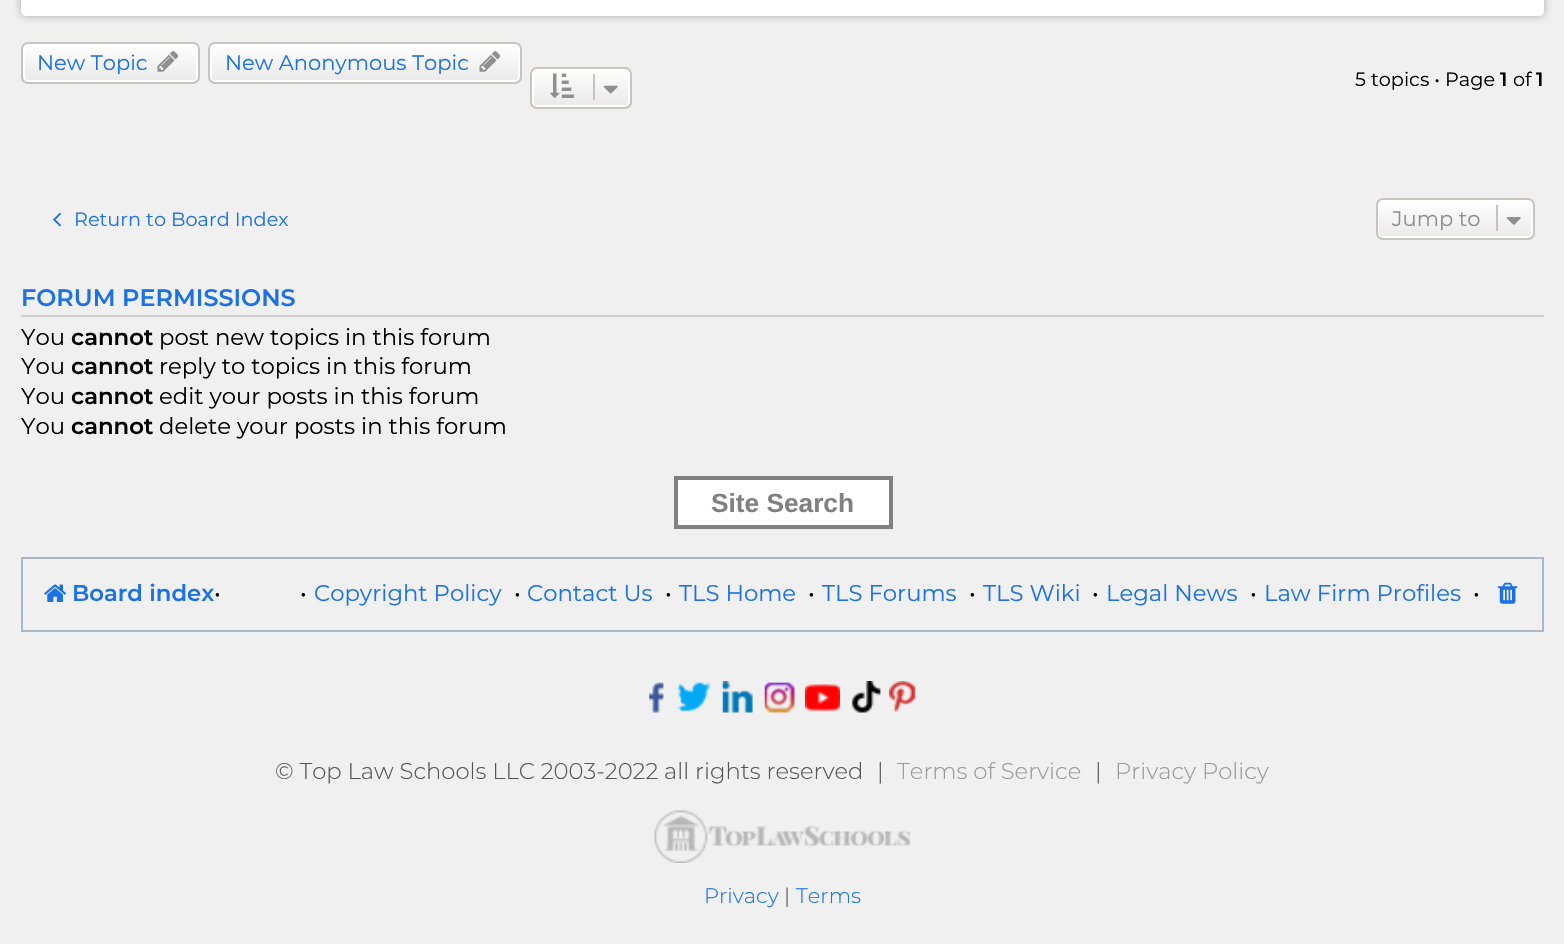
#include "include/core/SkBlurTypes.h"
#include "include/core/SkCanvas.h"
#include "include/core/SkData.h"
#include "include/core/SkFont.h"
#include "include/core/SkFontMgr.h"
#include "include/core/SkImage.h"
#include "include/core/SkMaskFilter.h"
#include "include/core/SkPaint.h"
#include "include/core/SkPathBuilder.h"
#include "include/core/SkTextBlob.h"
#include "include/effects/SkDashPathEffect.h"
#include "include/effects/SkGradientShader.h"
#include "include/utils/SkParsePath.h"

extern sk_sp<SkFontMgr> fontMgr;

static SkFont font(const char* family, int weight, float size, bool italic = false) {
    SkFontStyle style(weight, SkFontStyle::kNormal_Width,
        italic ? SkFontStyle::kItalic_Slant : SkFontStyle::kUpright_Slant);
    SkFont result(fontMgr->matchFamilyStyle(family, style), size);
    result.setSubpixel(true);
    return result;
}

static void drawLabel(SkCanvas* canvas, const char* s, float x, float y, const SkFont& font, SkColor color) {
    SkPaint ink(SkColor4f::FromColor(color));
    ink.setAntiAlias(true);
    canvas->drawString(s, x, y, font, ink);
}

static void fillRect(SkCanvas* canvas, float x, float y, float w, float h, SkColor color) {
    SkPaint ink(SkColor4f::FromColor(color));
    ink.setAntiAlias(true);
    canvas->drawRect(SkRect::MakeXYWH(x, y, w, h), ink);
}

static void fillRRect(SkCanvas* canvas, float x, float y, float w, float h, float radius, SkColor color) {
    SkPaint ink(SkColor4f::FromColor(color));
    ink.setAntiAlias(true);
    canvas->drawRoundRect(SkRect::MakeXYWH(x, y, w, h), radius, radius, ink);
}

static void drawPhoto(SkCanvas* canvas, const char* path, float x, float y, float w, float h) {
    auto image = SkImages::DeferredFromEncodedData(SkData::MakeFromFileName(path));
    canvas->drawImageRect(image, SkRect::MakeXYWH(x, y, w, h), SkSamplingOptions());
}

static SkPath parsePath(const char* data, bool evenOdd = false) {
    SkPath result = *SkParsePath::FromSVGString(data);
    if (evenOdd) result.setFillType(SkPathFillType::kEvenOdd);
    return result;
}

void draw(SkCanvas* canvas) {
    SkPaint paint;
    paint.setAntiAlias(true);
    canvas->clear(0xFFF0F0F0);
    paint.setColor(0xFFAAAAAA);
    paint.setMaskFilter(SkMaskFilter::MakeBlur(kNormal_SkBlurStyle, 4.5f));
    canvas->drawRoundRect(SkRect::MakeXYWH(21, -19, 1523, 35), 5, 5, paint);
    paint.setMaskFilter(nullptr);
    fillRRect(canvas, 21, -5, 1523, 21, 5, 0xFFFFFFFF);
    canvas->save();
    canvas->clipPath(parsePath("M28 42H193C197 42 200 45 200 49V77C200 81 197 84 193 84H28C24 84 21 81 21 77V49C21 45 24 42 28 42Z"), true);
    {
        const SkColor colors[] = {0xFFFFFFFF, 0xFFE9E9E9};
        const float stops[] = {0, 1};
        const SkPoint ends[] = {{110, 44}, {110, 82}};
        paint.setShader(SkGradientShader::MakeLinear(ends, colors, stops, 2, SkTileMode::kClamp));
        paint.setAlpha(255);
    }
    canvas->drawRect(SkRect::MakeXYWH(21, 44, 179, 38), paint);
    canvas->restore();
    paint.setStroke(true);
    paint.setStrokeWidth(2);
    paint.setShader(nullptr);
    paint.setColor(0xFFFFFFFF);
    canvas->drawRoundRect(SkRect::MakeXYWH(24, 45, 173, 36), 4, 4, paint);
    paint.setColor(0xFFC7C3BF);
    canvas->drawRoundRect(SkRect::MakeXYWH(22, 43, 177, 40), 6, 6, paint);
    SkFont font1 = font("Montserrat", 400, 21);
    drawLabel(canvas, "New Topic", 37, 70, font1, 0xFF1C72E4);
    drawPhoto(canvas, "assets/img1.png", 157, 51, 22, 21);
    canvas->save();
    canvas->clipPath(parsePath("M215 42H515C519 42 522 45 522 49V77C522 81 519 84 515 84H215C211 84 208 81 208 77V49C208 45 211 42 215 42Z"), true);
    paint.setStroke(false);
    {
        const SkColor colors[] = {0xFFFFFFFF, 0xFFE9E9E9};
        const float stops[] = {0, 1};
        const SkPoint ends[] = {{365, 44}, {365, 82}};
        paint.setShader(SkGradientShader::MakeLinear(ends, colors, stops, 2, SkTileMode::kClamp));
        paint.setAlpha(255);
    }
    canvas->drawRect(SkRect::MakeXYWH(208, 44, 314, 38), paint);
    canvas->restore();
    paint.setStroke(true);
    paint.setShader(nullptr);
    paint.setColor(0xFFFFFFFF);
    canvas->drawRoundRect(SkRect::MakeXYWH(211, 45, 308, 36), 4, 4, paint);
    paint.setColor(0xFFC7C3BF);
    canvas->drawRoundRect(SkRect::MakeXYWH(209, 43, 312, 40), 6, 6, paint);
    drawLabel(canvas, "New Anonymous Topic", 225, 70, font1, 0xFF1C72E4);
    drawPhoto(canvas, "assets/img1.png", 479, 51, 22, 21);
    canvas->save();
    canvas->clipPath(parsePath("M537 67H625C629 67 632 70 632 74V102C632 106 629 109 625 109H537C533 109 530 106 530 102V74C530 70 533 67 537 67Z"), true);
    paint.setStroke(false);
    {
        const SkColor colors[] = {0xFFFFFFFF, 0xFFE9E9E9};
        const float stops[] = {0, 1};
        const SkPoint ends[] = {{581, 68}, {581, 107}};
        paint.setShader(SkGradientShader::MakeLinear(ends, colors, stops, 2, SkTileMode::kClamp));
        paint.setAlpha(255);
    }
    canvas->drawRect(SkRect::MakeXYWH(530, 68, 102, 39), paint);
    canvas->restore();
    paint.setStroke(true);
    paint.setShader(nullptr);
    paint.setColor(0xFFFFFFFF);
    canvas->drawRoundRect(SkRect::MakeXYWH(533, 69, 96, 37), 4, 4, paint);
    paint.setColor(0xFFC7C3BF);
    canvas->drawRoundRect(SkRect::MakeXYWH(531, 68, 100, 40), 6, 6, paint);
    drawPhoto(canvas, "assets/img2.png", 550, 73, 24, 25);
    fillRect(canvas, 593, 74, 2, 26, 0xFFC7C3BF);
    drawPhoto(canvas, "assets/img3.png", 603, 85, 15, 9);
    SkFont font2 = font("Montserrat", 400, 19.25f);
    drawLabel(canvas, "5 topics • Page", 1355, 86, font2, 0xFF000000);
    SkFont font3 = font("Montserrat", 600, 19.25f);
    drawLabel(canvas, "1", 1500, 86, font3, 0xFF000000);
    drawLabel(canvas, "of", 1513, 86, font2, 0xFF000000);
    drawLabel(canvas, "1", 1536, 86, font3, 0xFF000000);
    drawPhoto(canvas, "assets/img4.png", 53, 212, 8, 15);
    drawLabel(canvas, "Return to Board Index", 74, 226, font2, 0xFF1C72E4);
    canvas->save();
    canvas->clipPath(parsePath("M1383 198H1528C1532 198 1535 201 1535 205V233C1535 237 1532 240 1528 240H1383C1379 240 1376 237 1376 233V205C1376 201 1379 198 1383 198Z"), true);
    paint.setStroke(false);
    {
        const SkColor colors[] = {0xFFFFFFFF, 0xFFE9E9E9};
        const float stops[] = {0, 1};
        const SkPoint ends[] = {{1455, 200}, {1455, 238}};
        paint.setShader(SkGradientShader::MakeLinear(ends, colors, stops, 2, SkTileMode::kClamp));
        paint.setAlpha(255);
    }
    canvas->drawRect(SkRect::MakeXYWH(1376, 200, 159, 38), paint);
    canvas->restore();
    paint.setStroke(true);
    paint.setShader(nullptr);
    paint.setColor(0xFFFFFFFF);
    canvas->drawRoundRect(SkRect::MakeXYWH(1378, 201, 154, 36), 4, 4, paint);
    paint.setColor(0xFFC7C3BF);
    canvas->drawRoundRect(SkRect::MakeXYWH(1377, 199, 157, 40), 6, 6, paint);
    drawLabel(canvas, "Jump to", 1392, 226, font1, 0xFF8F8F8F);
    fillRect(canvas, 1496, 205, 2, 26, 0xFFC7C3BF);
    drawPhoto(canvas, "assets/img5.png", 1506, 217, 15, 8);
    fillRect(canvas, 21, 315, 1523, 2, 0xFFCCCCCC);
    SkFont font4 = font("Montserrat", 600, 23.9f);
    drawLabel(canvas, "FORUM PERMISSIONS", 21, 306, font4, 0xFF1C72E4);
    SkFont font5 = font("Montserrat", 400, 22.75f);
    drawLabel(canvas, "You", 21, 345, font5, 0xFF000000);
    SkFont font6 = font("Montserrat", 600, 22.75f);
    drawLabel(canvas, "cannot", 71, 345, font6, 0xFF000000);
    drawLabel(canvas, "post new topics in this forum", 159, 345, font5, 0xFF000000);
    drawLabel(canvas, "You", 21, 374, font5, 0xFF000000);
    drawLabel(canvas, "cannot", 71, 374, font6, 0xFF000000);
    drawLabel(canvas, "reply to topics in this forum", 159, 374, font5, 0xFF000000);
    drawLabel(canvas, "You", 21, 404, font5, 0xFF000000);
    drawLabel(canvas, "cannot", 71, 404, font6, 0xFF000000);
    drawLabel(canvas, "edit your posts in this forum", 159, 404, font5, 0xFF000000);
    drawLabel(canvas, "You", 21, 434, font5, 0xFF000000);
    drawLabel(canvas, "cannot", 71, 434, font6, 0xFF000000);
    drawLabel(canvas, "delete your posts in this forum", 159, 434, font5, 0xFF000000);
    paint.setStroke(false);
    paint.setColor(0xFFFFFFFF);
    canvas->drawRect(SkRect::MakeXYWH(676, 478, 215, 49), paint);
    paint.setStroke(true);
    paint.setStrokeWidth(4);
    paint.setColor(0xFF808080);
    canvas->drawRect(SkRect::MakeXYWH(676, 478, 215, 49), paint);
    SkFont font7 = font("Liberation Sans", 700, 26.25f);
    drawLabel(canvas, "Site Search", 711, 512, font7, 0xFF808080);
    paint.setStrokeWidth(2);
    paint.setColor(0xFFA9B8C2);
    canvas->drawRect(SkRect::MakeXYWH(22, 558, 1521, 73), paint);
    drawPhoto(canvas, "assets/img6.png", 44, 584, 23, 18);
    drawLabel(canvas, "Board index", 72, 601, font6, 0xFF1C72E4);
    drawLabel(canvas, "•", 214, 601, font5, 0xFF000000);
    drawLabel(canvas, "•", 300, 601, font5, 0xFF000000);
    drawLabel(canvas, "Copyright Policy", 314, 601, font5, 0xFF1C72E4);
    drawLabel(canvas, "•", 514, 601, font5, 0xFF000000);
    drawLabel(canvas, "Contact Us", 527, 601, font5, 0xFF1C72E4);
    drawLabel(canvas, "•", 665, 601, font5, 0xFF000000);
    drawLabel(canvas, "TLS Home", 679, 601, font5, 0xFF1C72E4);
    drawLabel(canvas, "•", 808, 601, font5, 0xFF000000);
    drawLabel(canvas, "TLS Forums", 822, 601, font5, 0xFF1C72E4);
    drawLabel(canvas, "•", 969, 601, font5, 0xFF000000);
    drawLabel(canvas, "TLS Wiki", 983, 601, font5, 0xFF1C72E4);
    drawLabel(canvas, "•", 1092, 601, font5, 0xFF000000);
    drawLabel(canvas, "Legal News", 1106, 601, font5, 0xFF1C72E4);
    drawLabel(canvas, "•", 1250, 601, font5, 0xFF000000);
    drawLabel(canvas, "Law Firm Profiles", 1264, 601, font5, 0xFF1C72E4);
    drawLabel(canvas, "•", 1473, 601, font5, 0xFF000000);
    drawPhoto(canvas, "assets/img7.png", 1498, 582, 20, 22);
    drawPhoto(canvas, "assets/img8.png", 649, 682, 36, 31);
    drawPhoto(canvas, "assets/img9.png", 680, 682, 31, 30);
    drawPhoto(canvas, "assets/img10.png", 722, 681, 31, 32);
    drawPhoto(canvas, "assets/img11.png", 764, 682, 31, 31);
    drawPhoto(canvas, "assets/img12.png", 805, 684, 35, 28);
    drawPhoto(canvas, "assets/img13.png", 851, 681, 30, 32);
    drawPhoto(canvas, "assets/img14.png", 889, 681, 27, 32);
    SkFont font8 = font("Montserrat", 300, 22.75f);
    drawLabel(canvas, "© Top Law Schools LLC 2003-2022 all rights reserved", 275, 779, font8, 0xFF555555);
    drawLabel(canvas, "|", 877, 779, font8, 0xFF555555);
    drawLabel(canvas, "Terms of Service", 897, 779, font8, 0xFF999999);
    drawLabel(canvas, "|", 1095, 779, font8, 0xFF555555);
    drawLabel(canvas, "Privacy Policy", 1115, 779, font8, 0xFF999999);
    drawPhoto(canvas, "assets/img15.png", 654, 810, 256, 53);
    SkFont font9 = font("Montserrat", 300, 21);
    drawLabel(canvas, "Privacy", 704, 903, font9, 0xFF1C72E4);
    drawLabel(canvas, "|", 784, 903, font9, 0xFF555555);
    drawLabel(canvas, "Terms", 796, 903, font9, 0xFF1C72E4);
}
